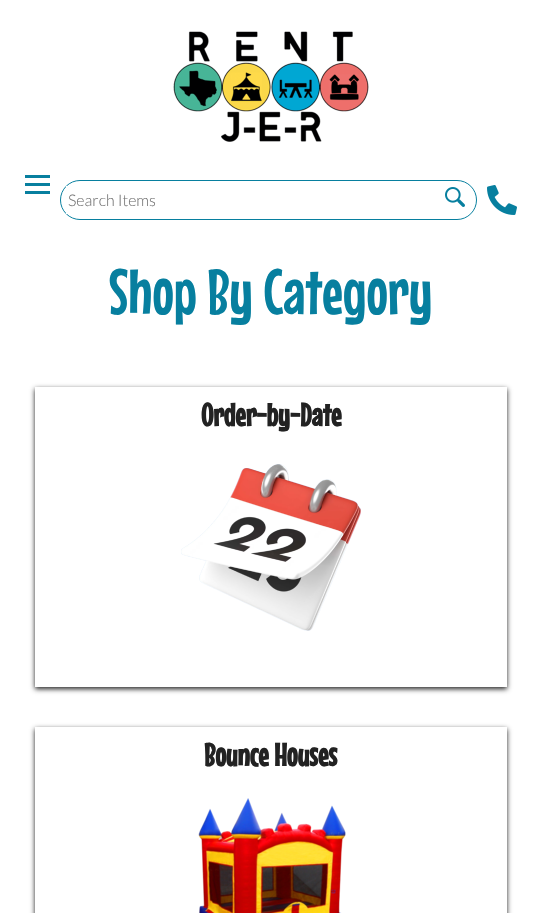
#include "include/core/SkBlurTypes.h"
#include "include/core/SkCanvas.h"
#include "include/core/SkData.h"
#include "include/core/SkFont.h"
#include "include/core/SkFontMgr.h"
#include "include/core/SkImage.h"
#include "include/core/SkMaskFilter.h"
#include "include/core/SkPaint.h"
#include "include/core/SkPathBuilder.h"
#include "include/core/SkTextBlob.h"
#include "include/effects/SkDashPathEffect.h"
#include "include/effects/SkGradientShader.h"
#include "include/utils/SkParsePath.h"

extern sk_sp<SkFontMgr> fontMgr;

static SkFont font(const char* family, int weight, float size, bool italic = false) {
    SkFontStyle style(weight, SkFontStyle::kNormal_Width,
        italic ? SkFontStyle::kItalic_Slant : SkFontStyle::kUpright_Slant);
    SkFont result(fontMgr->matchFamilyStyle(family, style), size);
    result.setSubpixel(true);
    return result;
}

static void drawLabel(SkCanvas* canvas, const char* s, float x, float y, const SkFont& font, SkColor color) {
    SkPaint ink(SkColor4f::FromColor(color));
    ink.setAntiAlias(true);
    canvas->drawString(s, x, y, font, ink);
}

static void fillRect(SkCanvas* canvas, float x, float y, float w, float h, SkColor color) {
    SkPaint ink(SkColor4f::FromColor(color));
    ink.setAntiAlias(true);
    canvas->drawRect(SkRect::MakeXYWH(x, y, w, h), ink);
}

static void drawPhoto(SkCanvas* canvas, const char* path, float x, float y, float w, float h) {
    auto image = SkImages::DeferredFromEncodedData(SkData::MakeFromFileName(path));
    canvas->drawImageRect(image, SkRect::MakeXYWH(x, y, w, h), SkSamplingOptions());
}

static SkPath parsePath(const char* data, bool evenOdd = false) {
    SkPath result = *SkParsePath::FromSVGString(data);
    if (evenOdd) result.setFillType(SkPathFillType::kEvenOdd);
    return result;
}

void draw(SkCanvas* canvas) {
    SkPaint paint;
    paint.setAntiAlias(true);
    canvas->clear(0xFFFFFFFF);
    drawPhoto(canvas, "assets/img1.png", 173, 31, 196, 111);
    fillRect(canvas, 25, 175, 25, 3, 0xFF077F9F);
    fillRect(canvas, 25, 183, 25, 3, 0xFF077F9F);
    fillRect(canvas, 25, 191, 25, 3, 0xFF077F9F);
    paint.setStroke(true);
    paint.setStrokeWidth(1);
    paint.setColor(0xFF077F9F);
    canvas->drawRoundRect(SkRect::MakeXYWH(60.5f, 180.5f, 416, 39), 19.5f, 19.5f, paint);
    fillRect(canvas, 66, 186, 2, 28, 0xFFFFFFFF);
    SkFont font1 = font("Lato", 300, 16);
    drawLabel(canvas, "Search Items", 68, 206, font1, 0xFF757575);
    drawPhoto(canvas, "assets/img2.png", 445, 187, 20, 20);
    drawPhoto(canvas, "assets/img3.png", 487, 185, 30, 30);
    SkFont font2 = font("Mouse Memoirs", 400, 64);
    drawLabel(canvas, "Shop By Category", 109, 314, font2, 0xFF077F9F);
    canvas->save();
    canvas->clipPath(parsePath("M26 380H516V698H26ZM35 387H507V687H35Z", true), true);
    paint.setStroke(false);
    paint.setColor(0xFF222222);
    paint.setMaskFilter(SkMaskFilter::MakeBlur(kNormal_SkBlurStyle, 2.5f));
    canvas->drawRect(SkRect::MakeXYWH(35, 389, 472, 300), paint);
    paint.setMaskFilter(nullptr);
    canvas->restore();
    SkFont font3 = font("Mouse Memoirs", 700, 32);
    drawLabel(canvas, "Order-by-Date", 201, 426, font3, 0xFF222222);
    drawPhoto(canvas, "assets/img4.png", 181, 464, 180, 167);
    canvas->save();
    canvas->clipPath(parsePath("M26 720H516V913H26ZM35 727H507V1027H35Z", true), true);
    paint.setMaskFilter(SkMaskFilter::MakeBlur(kNormal_SkBlurStyle, 2.5f));
    canvas->drawRect(SkRect::MakeXYWH(35, 729, 472, 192), paint);
    paint.setMaskFilter(nullptr);
    canvas->restore();
    drawLabel(canvas, "Bounce Houses", 204, 766, font3, 0xFF222222);
    drawPhoto(canvas, "assets/img5.png", 198, 798, 148, 115);
}
